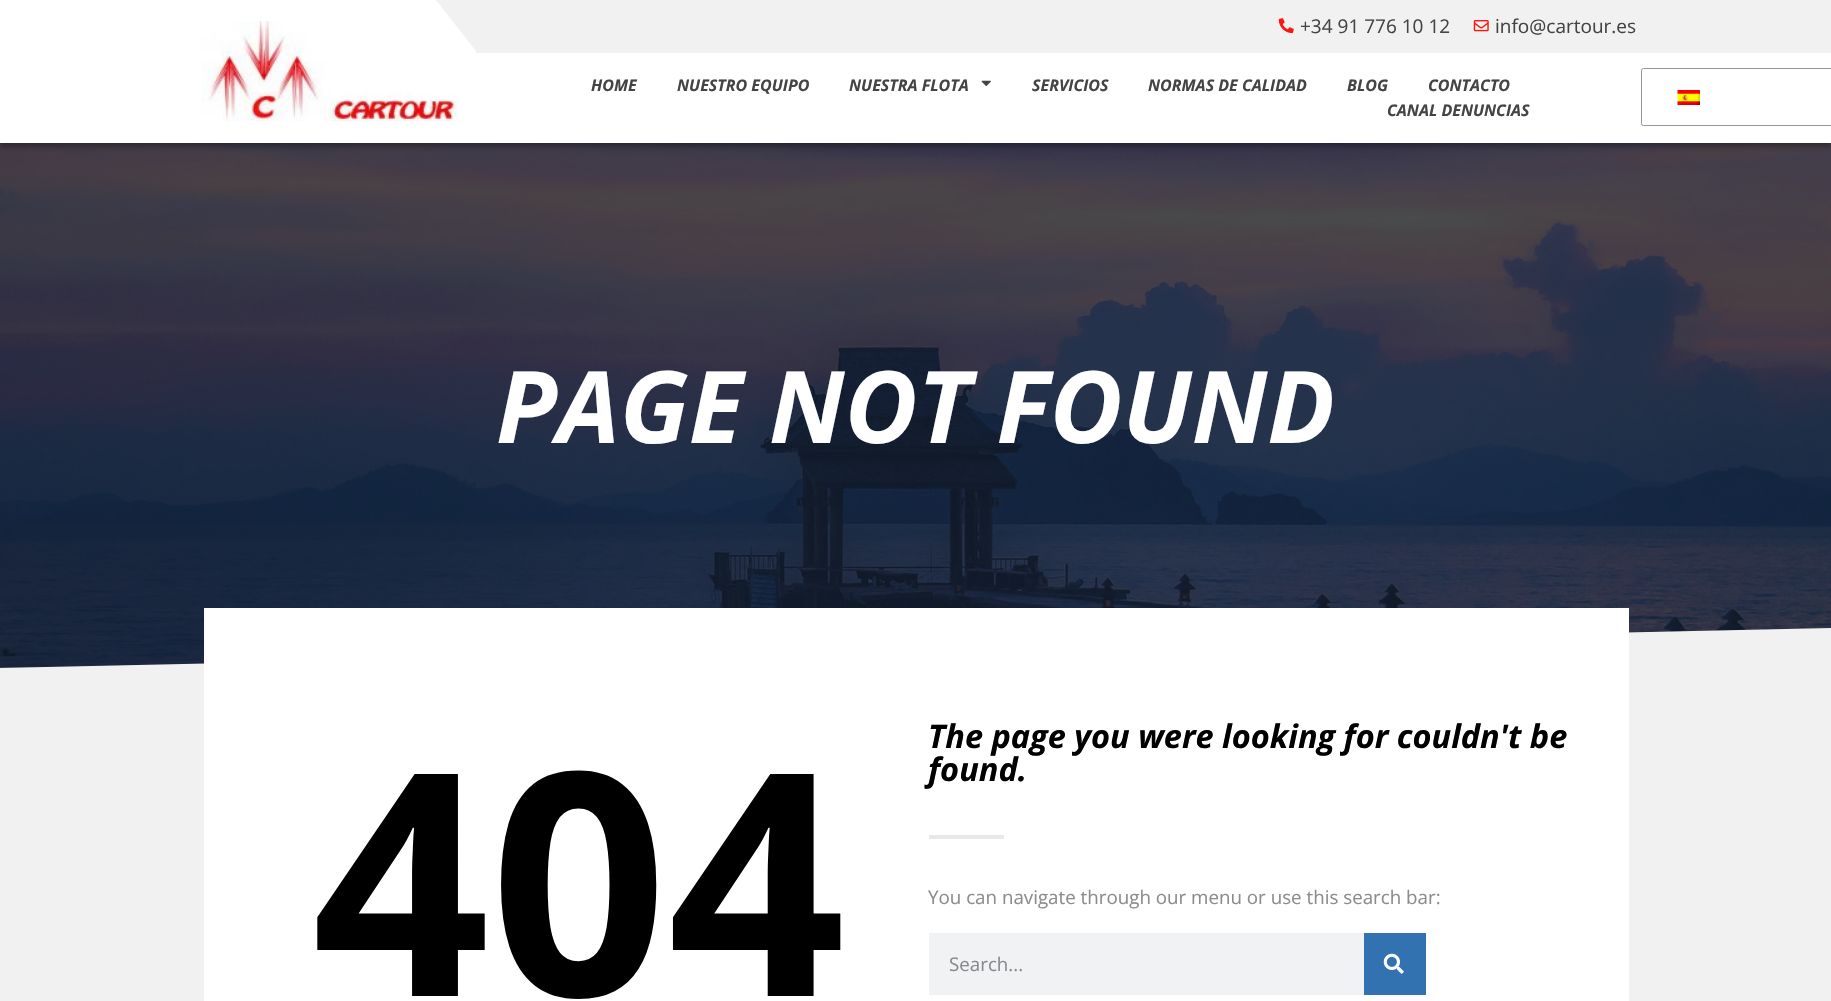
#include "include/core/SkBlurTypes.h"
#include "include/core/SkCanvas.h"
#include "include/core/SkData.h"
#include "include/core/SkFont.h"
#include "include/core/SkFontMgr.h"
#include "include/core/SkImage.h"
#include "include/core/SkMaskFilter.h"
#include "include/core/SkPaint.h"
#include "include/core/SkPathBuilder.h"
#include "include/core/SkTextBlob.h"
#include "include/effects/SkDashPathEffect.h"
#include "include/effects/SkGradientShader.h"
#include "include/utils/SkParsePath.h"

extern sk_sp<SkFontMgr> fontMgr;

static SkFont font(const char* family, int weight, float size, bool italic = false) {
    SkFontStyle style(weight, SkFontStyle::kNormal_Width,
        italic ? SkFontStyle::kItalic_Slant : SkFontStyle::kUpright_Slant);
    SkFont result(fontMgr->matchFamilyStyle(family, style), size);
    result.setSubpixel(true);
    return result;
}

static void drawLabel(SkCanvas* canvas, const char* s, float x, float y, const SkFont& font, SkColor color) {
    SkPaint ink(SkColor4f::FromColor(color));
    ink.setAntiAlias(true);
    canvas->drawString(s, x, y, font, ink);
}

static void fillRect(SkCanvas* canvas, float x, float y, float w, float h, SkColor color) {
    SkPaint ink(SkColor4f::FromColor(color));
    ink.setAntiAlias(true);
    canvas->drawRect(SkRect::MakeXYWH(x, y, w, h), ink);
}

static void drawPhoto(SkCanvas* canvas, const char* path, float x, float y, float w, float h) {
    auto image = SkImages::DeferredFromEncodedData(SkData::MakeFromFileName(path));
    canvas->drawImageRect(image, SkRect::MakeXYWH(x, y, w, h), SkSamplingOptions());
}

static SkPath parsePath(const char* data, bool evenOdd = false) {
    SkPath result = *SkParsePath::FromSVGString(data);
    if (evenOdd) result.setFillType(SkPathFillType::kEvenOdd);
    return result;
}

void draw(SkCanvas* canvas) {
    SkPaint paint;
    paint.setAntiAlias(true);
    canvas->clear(0xFFF1F1F1);
    fillRect(canvas, 0, 667, 46, 1, 0xFF454F5C);
    drawPhoto(canvas, "assets/img6.png", 0, 143, 1831, 525);
    paint.setColor(0x33000000);
    paint.setMaskFilter(SkMaskFilter::MakeBlur(kNormal_SkBlurStyle, 2.5f));
    canvas->drawRect(SkRect::MakeXYWH(0, 1, 1831, 143), paint);
    paint.setMaskFilter(nullptr);
    paint.setMaskFilter(SkMaskFilter::MakeBlur(kNormal_SkBlurStyle, 2.5f));
    canvas->drawRect(SkRect::MakeXYWH(0, 5, 1831, 143), paint);
    paint.setMaskFilter(nullptr);
    fillRect(canvas, 0, 0, 1831, 143, 0xFFFFFFFF);
    drawPhoto(canvas, "assets/img1.png", 201, 21, 257, 101);
    fillRect(canvas, 476, 0, 1355, 53, 0xFFF1F1F1);
    paint.setColor(0xFFF1F1F1);
    canvas->drawPath(parsePath("M436 0H476V51Z"), paint);
    drawPhoto(canvas, "assets/img2.png", 1278, 18, 16, 16);
    SkFont font1 = font("Open Sans", 400, 19);
    drawLabel(canvas, "+34 91 776 10 12", 1300, 33, font1, 0xFF444444);
    drawPhoto(canvas, "assets/img3.png", 1473, 20, 16, 12);
    drawLabel(canvas, "info@cartour.es", 1495, 33, font1, 0xFF444444);
    SkFont font2 = font("Open Sans", 700, 16, true);
    drawLabel(canvas, "HOME", 591, 91, font2, 0xFF444444);
    drawLabel(canvas, "NUESTRO EQUIPO", 677, 91, font2, 0xFF444444);
    drawLabel(canvas, "NUESTRA FLOTA", 849, 91, font2, 0xFF444444);
    drawPhoto(canvas, "assets/img4.png", 981, 80, 10, 6);
    drawLabel(canvas, "SERVICIOS", 1032, 91, font2, 0xFF444444);
    drawLabel(canvas, "NORMAS DE CALIDAD", 1148, 91, font2, 0xFF444444);
    drawLabel(canvas, "BLOG", 1347, 91, font2, 0xFF444444);
    drawLabel(canvas, "CONTACTO", 1428, 91, font2, 0xFF444444);
    drawLabel(canvas, "CANAL DENUNCIAS", 1387, 116, font2, 0xFF444444);
    paint.setStroke(true);
    paint.setStrokeWidth(1);
    paint.setColor(0xFF949494);
    canvas->drawRoundRect(SkRect::MakeXYWH(1641.5f, 68.5f, 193, 57), 2, 2, paint);
    drawPhoto(canvas, "assets/img5.png", 1677, 90, 23, 15);
    SkFont font3 = font("Open Sans", 700, 100, true);
    drawLabel(canvas, "PAGE NOT FOUND", 496, 443, font3, 0xFFFFFFFF);
    paint.setStroke(false);
    paint.setColor(0xFFF1F1F1);
    canvas->drawPath(parsePath("M1831 668H0L1831 628Z"), paint);
    fillRect(canvas, 204, 608, 1425, 393, 0xFFFFFFFF);
    SkFont font4 = font("Open Sans", 700, 311);
    drawLabel(canvas, "404", 312, 996, font4, 0xFF000000);
    SkFont font5 = font("Open Sans", 700, 32.5f, true);
    drawLabel(canvas, "The page you were looking for couldn't be", 928, 748, font5, 0xFF000000);
    drawLabel(canvas, "found.", 928, 781, font5, 0xFF000000);
    fillRect(canvas, 929, 835, 75, 4, 0xFFE8E8E8);
    SkFont font6 = font("Open Sans", 400, 18.75f);
    drawLabel(canvas, "You can navigate through our menu or use this search bar:", 928, 904, font6, 0xFF8C8C8C);
    fillRect(canvas, 929, 933, 435, 62, 0xFFF1F2F3);
    drawLabel(canvas, "Search...", 949, 971, font6, 0xFF868A8E);
    fillRect(canvas, 1364, 933, 62, 62, 0xFF3272B0);
    drawPhoto(canvas, "assets/img7.png", 1383, 953, 21, 21);
}
